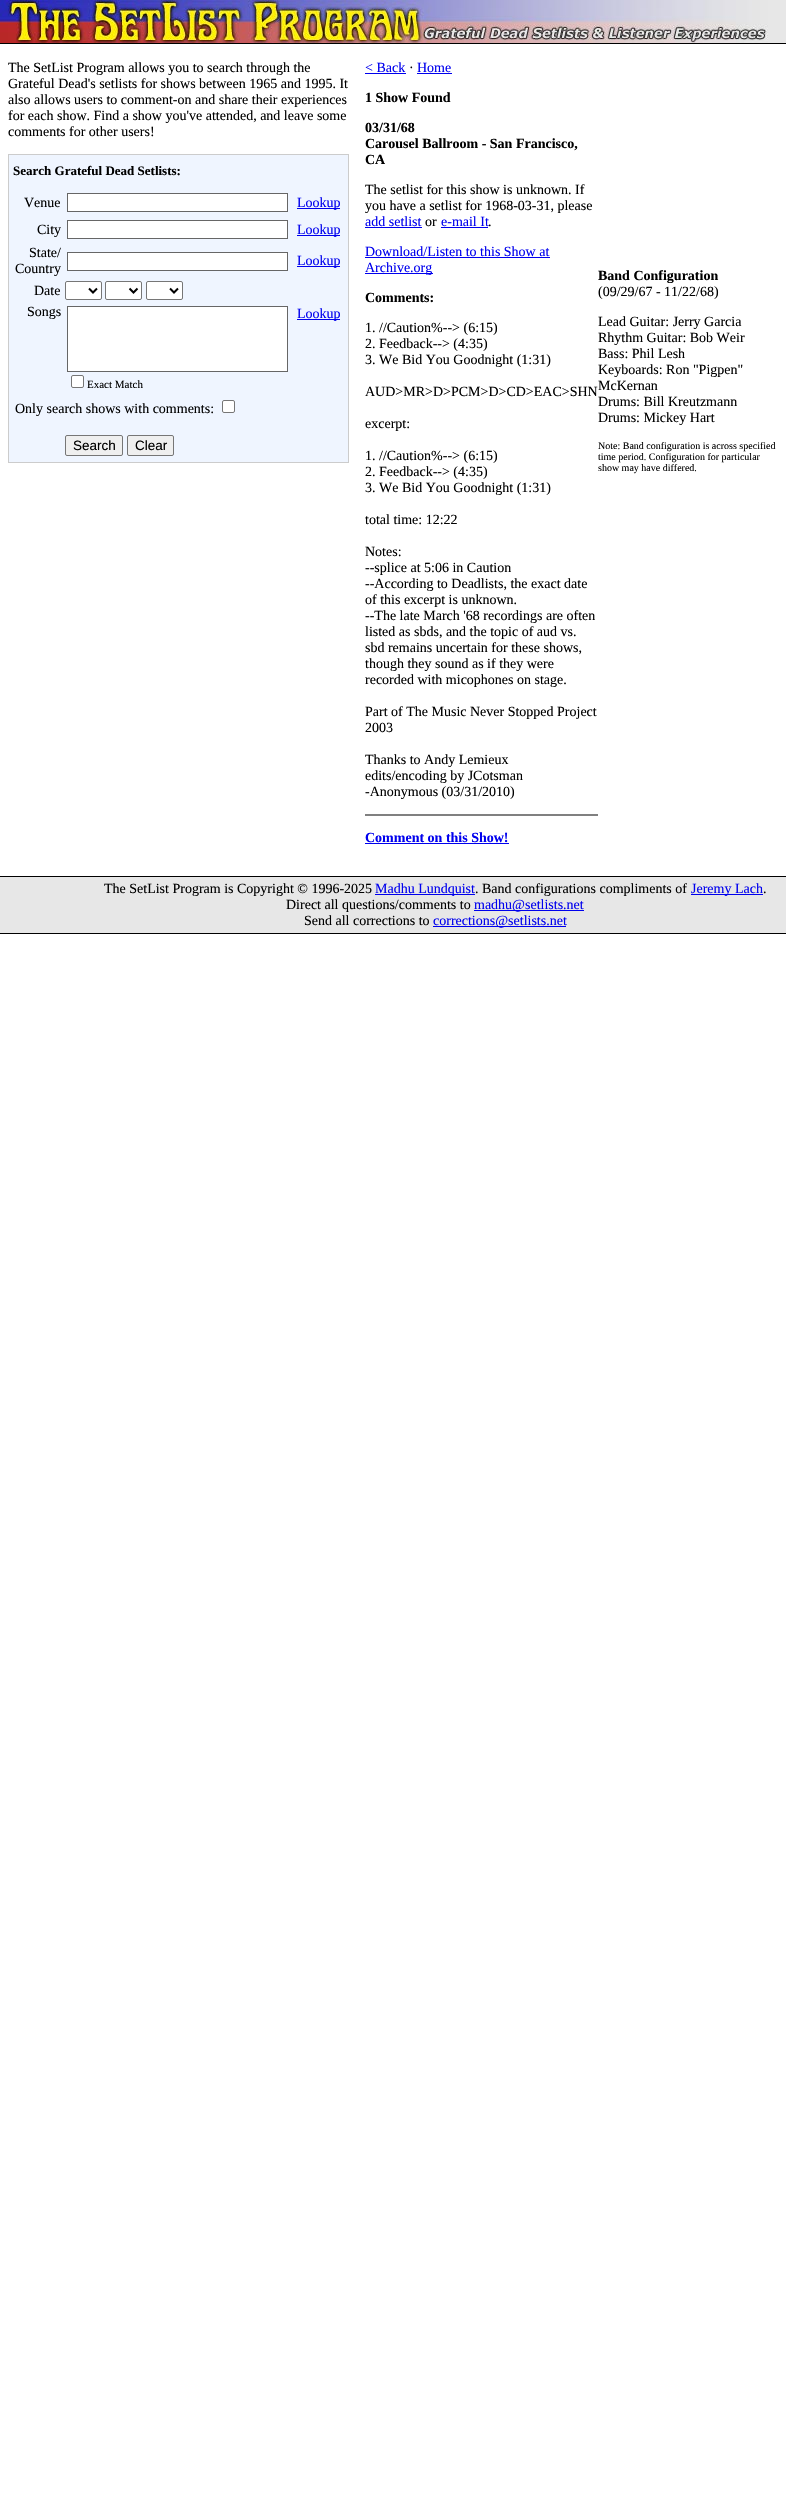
#include "include/core/SkBlurTypes.h"
#include "include/core/SkCanvas.h"
#include "include/core/SkData.h"
#include "include/core/SkFont.h"
#include "include/core/SkFontMgr.h"
#include "include/core/SkImage.h"
#include "include/core/SkMaskFilter.h"
#include "include/core/SkPaint.h"
#include "include/core/SkPathBuilder.h"
#include "include/core/SkTextBlob.h"
#include "include/effects/SkDashPathEffect.h"
#include "include/effects/SkGradientShader.h"
#include "include/utils/SkParsePath.h"

extern sk_sp<SkFontMgr> fontMgr;

static SkFont font(const char* family, int weight, float size, bool italic = false) {
    SkFontStyle style(weight, SkFontStyle::kNormal_Width,
        italic ? SkFontStyle::kItalic_Slant : SkFontStyle::kUpright_Slant);
    SkFont result(fontMgr->matchFamilyStyle(family, style), size);
    result.setSubpixel(true);
    return result;
}

static void drawLabel(SkCanvas* canvas, const char* s, float x, float y, const SkFont& font, SkColor color) {
    SkPaint ink(SkColor4f::FromColor(color));
    ink.setAntiAlias(true);
    canvas->drawString(s, x, y, font, ink);
}

static void fillRect(SkCanvas* canvas, float x, float y, float w, float h, SkColor color) {
    SkPaint ink(SkColor4f::FromColor(color));
    ink.setAntiAlias(true);
    canvas->drawRect(SkRect::MakeXYWH(x, y, w, h), ink);
}

static void drawPhoto(SkCanvas* canvas, const char* path, float x, float y, float w, float h) {
    auto image = SkImages::DeferredFromEncodedData(SkData::MakeFromFileName(path));
    canvas->drawImageRect(image, SkRect::MakeXYWH(x, y, w, h), SkSamplingOptions());
}

static SkPath parsePath(const char* data, bool evenOdd = false) {
    SkPath result = *SkParsePath::FromSVGString(data);
    if (evenOdd) result.setFillType(SkPathFillType::kEvenOdd);
    return result;
}

void draw(SkCanvas* canvas) {
    SkPaint paint;
    paint.setAntiAlias(true);
    canvas->clear(0xFFFFFFFF);
    fillRect(canvas, 768, 0, 18, 43, 0xFFE7E7E7);
    drawPhoto(canvas, "assets/img1.png", 0, 0, 768, 43);
    fillRect(canvas, 0, 43, 786, 1, 0xFF000000);
    SkFont font1 = font("Liberation Serif", 400, 14);
    drawLabel(canvas, "The SetList Program allows you to search through the", 8, 72, font1, 0xFF000000);
    drawLabel(canvas, "Grateful Dead's setlists for shows between 1965 and 1995. It", 8, 88, font1, 0xFF000000);
    drawLabel(canvas, "also allows users to comment-on and share their experiences", 8, 104, font1, 0xFF000000);
    drawLabel(canvas, "for each show. Find a show you've attended, and leave some", 8, 120, font1, 0xFF000000);
    drawLabel(canvas, "comments for other users!", 8, 136, font1, 0xFF000000);
    paint.setColor(0xFFEFF5FF);
    canvas->drawRect(SkRect::MakeXYWH(8.5f, 154.5f, 340, 308), paint);
    paint.setStroke(true);
    paint.setStrokeWidth(1);
    paint.setColor(0xFFCCCCCC);
    canvas->drawRect(SkRect::MakeXYWH(8.5f, 154.5f, 340, 308), paint);
    SkFont font2 = font("Liberation Serif", 700, 13);
    drawLabel(canvas, "Search Grateful Dead Setlists:", 13, 175, font2, 0xFF000000);
    drawLabel(canvas, "Venue", 24, 207, font1, 0xFF000000);
    paint.setStroke(false);
    paint.setColor(0xFFFFFFFF);
    canvas->drawRect(SkRect::MakeXYWH(67.5f, 193.5f, 220, 18), paint);
    paint.setStroke(true);
    paint.setColor(0xFF666666);
    canvas->drawRect(SkRect::MakeXYWH(67.5f, 193.5f, 220, 18), paint);
    fillRect(canvas, 297, 208, 43, 1, 0xFF0000EE);
    drawLabel(canvas, "Lookup", 297, 207, font1, 0xFF0000EE);
    drawLabel(canvas, "City", 37, 234, font1, 0xFF000000);
    paint.setStroke(false);
    paint.setColor(0xFFFFFFFF);
    canvas->drawRect(SkRect::MakeXYWH(67.5f, 220.5f, 220, 18), paint);
    paint.setStroke(true);
    paint.setColor(0xFF666666);
    canvas->drawRect(SkRect::MakeXYWH(67.5f, 220.5f, 220, 18), paint);
    fillRect(canvas, 297, 235, 43, 1, 0xFF0000EE);
    drawLabel(canvas, "Lookup", 297, 234, font1, 0xFF0000EE);
    drawLabel(canvas, "State/", 29, 257, font1, 0xFF000000);
    drawLabel(canvas, "Country", 15, 273, font1, 0xFF000000);
    paint.setStroke(false);
    paint.setColor(0xFFFFFFFF);
    canvas->drawRect(SkRect::MakeXYWH(67.5f, 252.5f, 220, 18), paint);
    paint.setStroke(true);
    paint.setColor(0xFF666666);
    canvas->drawRect(SkRect::MakeXYWH(67.5f, 252.5f, 220, 18), paint);
    fillRect(canvas, 297, 266, 43, 1, 0xFF0000EE);
    drawLabel(canvas, "Lookup", 297, 265, font1, 0xFF0000EE);
    drawLabel(canvas, "Date", 34, 295, font1, 0xFF000000);
    paint.setStroke(false);
    paint.setColor(0xFFFFFFFF);
    canvas->drawRoundRect(SkRect::MakeXYWH(65.5f, 281.5f, 36, 18), 1.5f, 1.5f, paint);
    paint.setStroke(true);
    paint.setColor(0xFF767676);
    canvas->drawRoundRect(SkRect::MakeXYWH(65.5f, 281.5f, 36, 18), 1.5f, 1.5f, paint);
    paint.setStrokeWidth(2);
    paint.setColor(0xFF000000);
    canvas->drawPath(parsePath("M89 288.5L93 292.5L97 288.5"), paint);
    paint.setStroke(false);
    paint.setColor(0xFFFFFFFF);
    canvas->drawRoundRect(SkRect::MakeXYWH(105.5f, 281.5f, 36, 18), 1.5f, 1.5f, paint);
    paint.setStroke(true);
    paint.setStrokeWidth(1);
    paint.setColor(0xFF767676);
    canvas->drawRoundRect(SkRect::MakeXYWH(105.5f, 281.5f, 36, 18), 1.5f, 1.5f, paint);
    paint.setStrokeWidth(2);
    paint.setColor(0xFF000000);
    canvas->drawPath(parsePath("M129.5 288.5L133.5 292.5L137.5 288.5"), paint);
    paint.setStroke(false);
    paint.setColor(0xFFFFFFFF);
    canvas->drawRoundRect(SkRect::MakeXYWH(146.5f, 281.5f, 36, 18), 1.5f, 1.5f, paint);
    paint.setStroke(true);
    paint.setStrokeWidth(1);
    paint.setColor(0xFF767676);
    canvas->drawRoundRect(SkRect::MakeXYWH(146.5f, 281.5f, 36, 18), 1.5f, 1.5f, paint);
    paint.setStrokeWidth(2);
    paint.setColor(0xFF000000);
    canvas->drawPath(parsePath("M170 288.5L174 292.5L178 288.5"), paint);
    drawLabel(canvas, "Songs", 27, 316, font1, 0xFF000000);
    fillRect(canvas, 297, 319, 43, 1, 0xFF0000EE);
    drawLabel(canvas, "Lookup", 297, 318, font1, 0xFF0000EE);
    paint.setStroke(false);
    paint.setColor(0xFFFFFFFF);
    canvas->drawRect(SkRect::MakeXYWH(67.5f, 306.5f, 220, 65), paint);
    paint.setStroke(true);
    paint.setStrokeWidth(1);
    paint.setColor(0xFF666666);
    canvas->drawRect(SkRect::MakeXYWH(67.5f, 306.5f, 220, 65), paint);
    paint.setStroke(false);
    paint.setColor(0xFFFFFFFF);
    canvas->drawRoundRect(SkRect::MakeXYWH(71.5f, 375.5f, 12, 12), 1.5f, 1.5f, paint);
    paint.setStroke(true);
    paint.setColor(0xFF767676);
    canvas->drawRoundRect(SkRect::MakeXYWH(71.5f, 375.5f, 12, 12), 1.5f, 1.5f, paint);
    SkFont font3 = font("Liberation Serif", 400, 11);
    drawLabel(canvas, "Exact Match", 87, 388, font3, 0xFF000000);
    drawLabel(canvas, "Only search shows with comments:", 15, 413, font1, 0xFF000000);
    paint.setStroke(false);
    paint.setColor(0xFFFFFFFF);
    canvas->drawRoundRect(SkRect::MakeXYWH(222.5f, 400.5f, 12, 12), 1.5f, 1.5f, paint);
    paint.setStroke(true);
    paint.setColor(0xFF767676);
    canvas->drawRoundRect(SkRect::MakeXYWH(222.5f, 400.5f, 12, 12), 1.5f, 1.5f, paint);
    paint.setStroke(false);
    paint.setColor(0xFFEFEFEF);
    canvas->drawRoundRect(SkRect::MakeXYWH(65.5f, 435.5f, 57, 20), 1.5f, 1.5f, paint);
    paint.setStroke(true);
    paint.setColor(0xFF767676);
    canvas->drawRoundRect(SkRect::MakeXYWH(65.5f, 435.5f, 57, 20), 1.5f, 1.5f, paint);
    SkFont font4 = font("Liberation Sans", 400, 13.5f);
    drawLabel(canvas, "Search", 73, 450, font4, 0xFF000000);
    paint.setStroke(false);
    paint.setColor(0xFFEFEFEF);
    canvas->drawRoundRect(SkRect::MakeXYWH(127.5f, 435.5f, 46, 20), 1.5f, 1.5f, paint);
    paint.setStroke(true);
    paint.setColor(0xFF767676);
    canvas->drawRoundRect(SkRect::MakeXYWH(127.5f, 435.5f, 46, 20), 1.5f, 1.5f, paint);
    drawLabel(canvas, "Clear", 135, 450, font4, 0xFF000000);
    drawLabel(canvas, "< Back", 365, 72, font1, 0xFF0000EE);
    fillRect(canvas, 365, 73, 41, 1, 0xFF0000EE);
    drawLabel(canvas, "·", 409, 72, font1, 0xFF000000);
    drawLabel(canvas, "Home", 417, 72, font1, 0xFF0000EE);
    fillRect(canvas, 417, 73, 35, 1, 0xFF0000EE);
    SkFont font5 = font("Liberation Serif", 700, 14);
    drawLabel(canvas, "1 Show Found", 365, 102, font5, 0xFF000000);
    drawLabel(canvas, "03/31/68", 365, 132, font5, 0xFF000000);
    drawLabel(canvas, "Carousel Ballroom - San Francisco,", 365, 148, font5, 0xFF000000);
    drawLabel(canvas, "CA", 365, 164, font5, 0xFF000000);
    drawLabel(canvas, "The setlist for this show is unknown. If", 365, 194, font1, 0xFF000000);
    drawLabel(canvas, "you have a setlist for 1968-03-31, please", 365, 210, font1, 0xFF000000);
    drawLabel(canvas, "add setlist", 365, 226, font1, 0xFF0000EE);
    fillRect(canvas, 365, 227, 57, 1, 0xFF0000EE);
    drawLabel(canvas, "or", 425, 226, font1, 0xFF000000);
    drawLabel(canvas, "e-mail It", 441, 226, font1, 0xFF0000EE);
    fillRect(canvas, 441, 227, 47, 1, 0xFF0000EE);
    drawLabel(canvas, ".", 488, 226, font1, 0xFF000000);
    drawLabel(canvas, "Download/Listen to this Show at", 365, 256, font1, 0xFF0000EE);
    fillRect(canvas, 365, 257, 185, 1, 0xFF0000EE);
    fillRect(canvas, 365, 273, 68, 1, 0xFF0000EE);
    drawLabel(canvas, "Archive.org", 365, 272, font1, 0xFF0000EE);
    drawLabel(canvas, "Comments:", 365, 302, font5, 0xFF000000);
    drawLabel(canvas, "1. //Caution%--> (6:15)", 365, 332, font1, 0xFF000000);
    drawLabel(canvas, "2. Feedback--> (4:35)", 365, 348, font1, 0xFF000000);
    drawLabel(canvas, "3. We Bid You Goodnight (1:31)", 365, 364, font1, 0xFF000000);
    drawLabel(canvas, "AUD>MR>D>PCM>D>CD>EAC>SHN", 365, 396, font1, 0xFF000000);
    drawLabel(canvas, "excerpt:", 365, 428, font1, 0xFF000000);
    drawLabel(canvas, "1. //Caution%--> (6:15)", 365, 460, font1, 0xFF000000);
    drawLabel(canvas, "2. Feedback--> (4:35)", 365, 476, font1, 0xFF000000);
    drawLabel(canvas, "3. We Bid You Goodnight (1:31)", 365, 492, font1, 0xFF000000);
    drawLabel(canvas, "total time: 12:22", 365, 524, font1, 0xFF000000);
    drawLabel(canvas, "Notes:", 365, 556, font1, 0xFF000000);
    drawLabel(canvas, "--splice at 5:06 in Caution", 365, 572, font1, 0xFF000000);
    drawLabel(canvas, "--According to Deadlists, the exact date", 365, 588, font1, 0xFF000000);
    drawLabel(canvas, "of this excerpt is unknown.", 365, 604, font1, 0xFF000000);
    drawLabel(canvas, "--The late March '68 recordings are often", 365, 620, font1, 0xFF000000);
    drawLabel(canvas, "listed as sbds, and the topic of aud vs.", 365, 636, font1, 0xFF000000);
    drawLabel(canvas, "sbd remains uncertain for these shows,", 365, 652, font1, 0xFF000000);
    drawLabel(canvas, "though they sound as if they were", 365, 668, font1, 0xFF000000);
    drawLabel(canvas, "recorded with micophones on stage.", 365, 684, font1, 0xFF000000);
    drawLabel(canvas, "Part of The Music Never Stopped Project", 365, 716, font1, 0xFF000000);
    drawLabel(canvas, "2003", 365, 732, font1, 0xFF000000);
    drawLabel(canvas, "Thanks to Andy Lemieux", 365, 764, font1, 0xFF000000);
    drawLabel(canvas, "edits/encoding by JCotsman", 365, 780, font1, 0xFF000000);
    drawLabel(canvas, "-Anonymous (03/31/2010)", 365, 796, font1, 0xFF000000);
    fillRect(canvas, 366, 815, 231, 1, 0xFF808080);
    fillRect(canvas, 365, 814, 233, 1, 0xFF808080);
    fillRect(canvas, 597, 814, 1, 2, 0xFF808080);
    fillRect(canvas, 365, 814, 1, 2, 0xFF808080);
    drawLabel(canvas, "Comment on this Show!", 365, 842, font5, 0xFF0000EE);
    fillRect(canvas, 365, 843, 144, 1, 0xFF0000EE);
    drawLabel(canvas, "Band Configuration", 598, 280, font5, 0xFF000000);
    drawLabel(canvas, "(09/29/67 - 11/22/68)", 598, 296, font1, 0xFF000000);
    drawLabel(canvas, "Lead Guitar: Jerry Garcia", 598, 326, font1, 0xFF000000);
    drawLabel(canvas, "Rhythm Guitar: Bob Weir", 598, 342, font1, 0xFF000000);
    drawLabel(canvas, "Bass: Phil Lesh", 598, 358, font1, 0xFF000000);
    drawLabel(canvas, "Keyboards: Ron \"Pigpen\"", 598, 374, font1, 0xFF000000);
    drawLabel(canvas, "McKernan", 598, 390, font1, 0xFF000000);
    drawLabel(canvas, "Drums: Bill Kreutzmann", 598, 406, font1, 0xFF000000);
    drawLabel(canvas, "Drums: Mickey Hart", 598, 422, font1, 0xFF000000);
    SkFont font6 = font("Liberation Serif", 400, 10);
    drawLabel(canvas, "Note: Band configuration is across specified", 598, 449, font6, 0xFF000000);
    drawLabel(canvas, "time period. Configuration for particular", 598, 460, font6, 0xFF000000);
    drawLabel(canvas, "show may have differed.", 598, 471, font6, 0xFF000000);
    fillRect(canvas, 0, 876, 786, 1, 0xFF000000);
    fillRect(canvas, 0, 877, 786, 56, 0xFFE7E7E7);
    drawLabel(canvas, "The SetList Program is Copyright © 1996-2025", 104, 893, font1, 0xFF000000);
    fillRect(canvas, 375, 894, 100, 1, 0xFF0000EE);
    drawLabel(canvas, "Madhu Lundquist", 375, 893, font1, 0xFF0000EE);
    drawLabel(canvas, ". Band configurations compliments of", 475, 893, font1, 0xFF000000);
    fillRect(canvas, 691, 894, 72, 1, 0xFF0000EE);
    drawLabel(canvas, "Jeremy Lach", 691, 893, font1, 0xFF0000EE);
    drawLabel(canvas, ".", 763, 893, font1, 0xFF000000);
    drawLabel(canvas, "Direct all questions/comments to", 286, 909, font1, 0xFF000000);
    fillRect(canvas, 474, 910, 110, 1, 0xFF0000EE);
    drawLabel(canvas, "madhu@setlists.net", 474, 909, font1, 0xFF0000EE);
    drawLabel(canvas, "Send all corrections to", 304, 925, font1, 0xFF000000);
    fillRect(canvas, 433, 926, 133, 1, 0xFF0000EE);
    drawLabel(canvas, "corrections@setlists.net", 433, 925, font1, 0xFF0000EE);
    fillRect(canvas, 0, 933, 786, 1, 0xFF000000);
}
